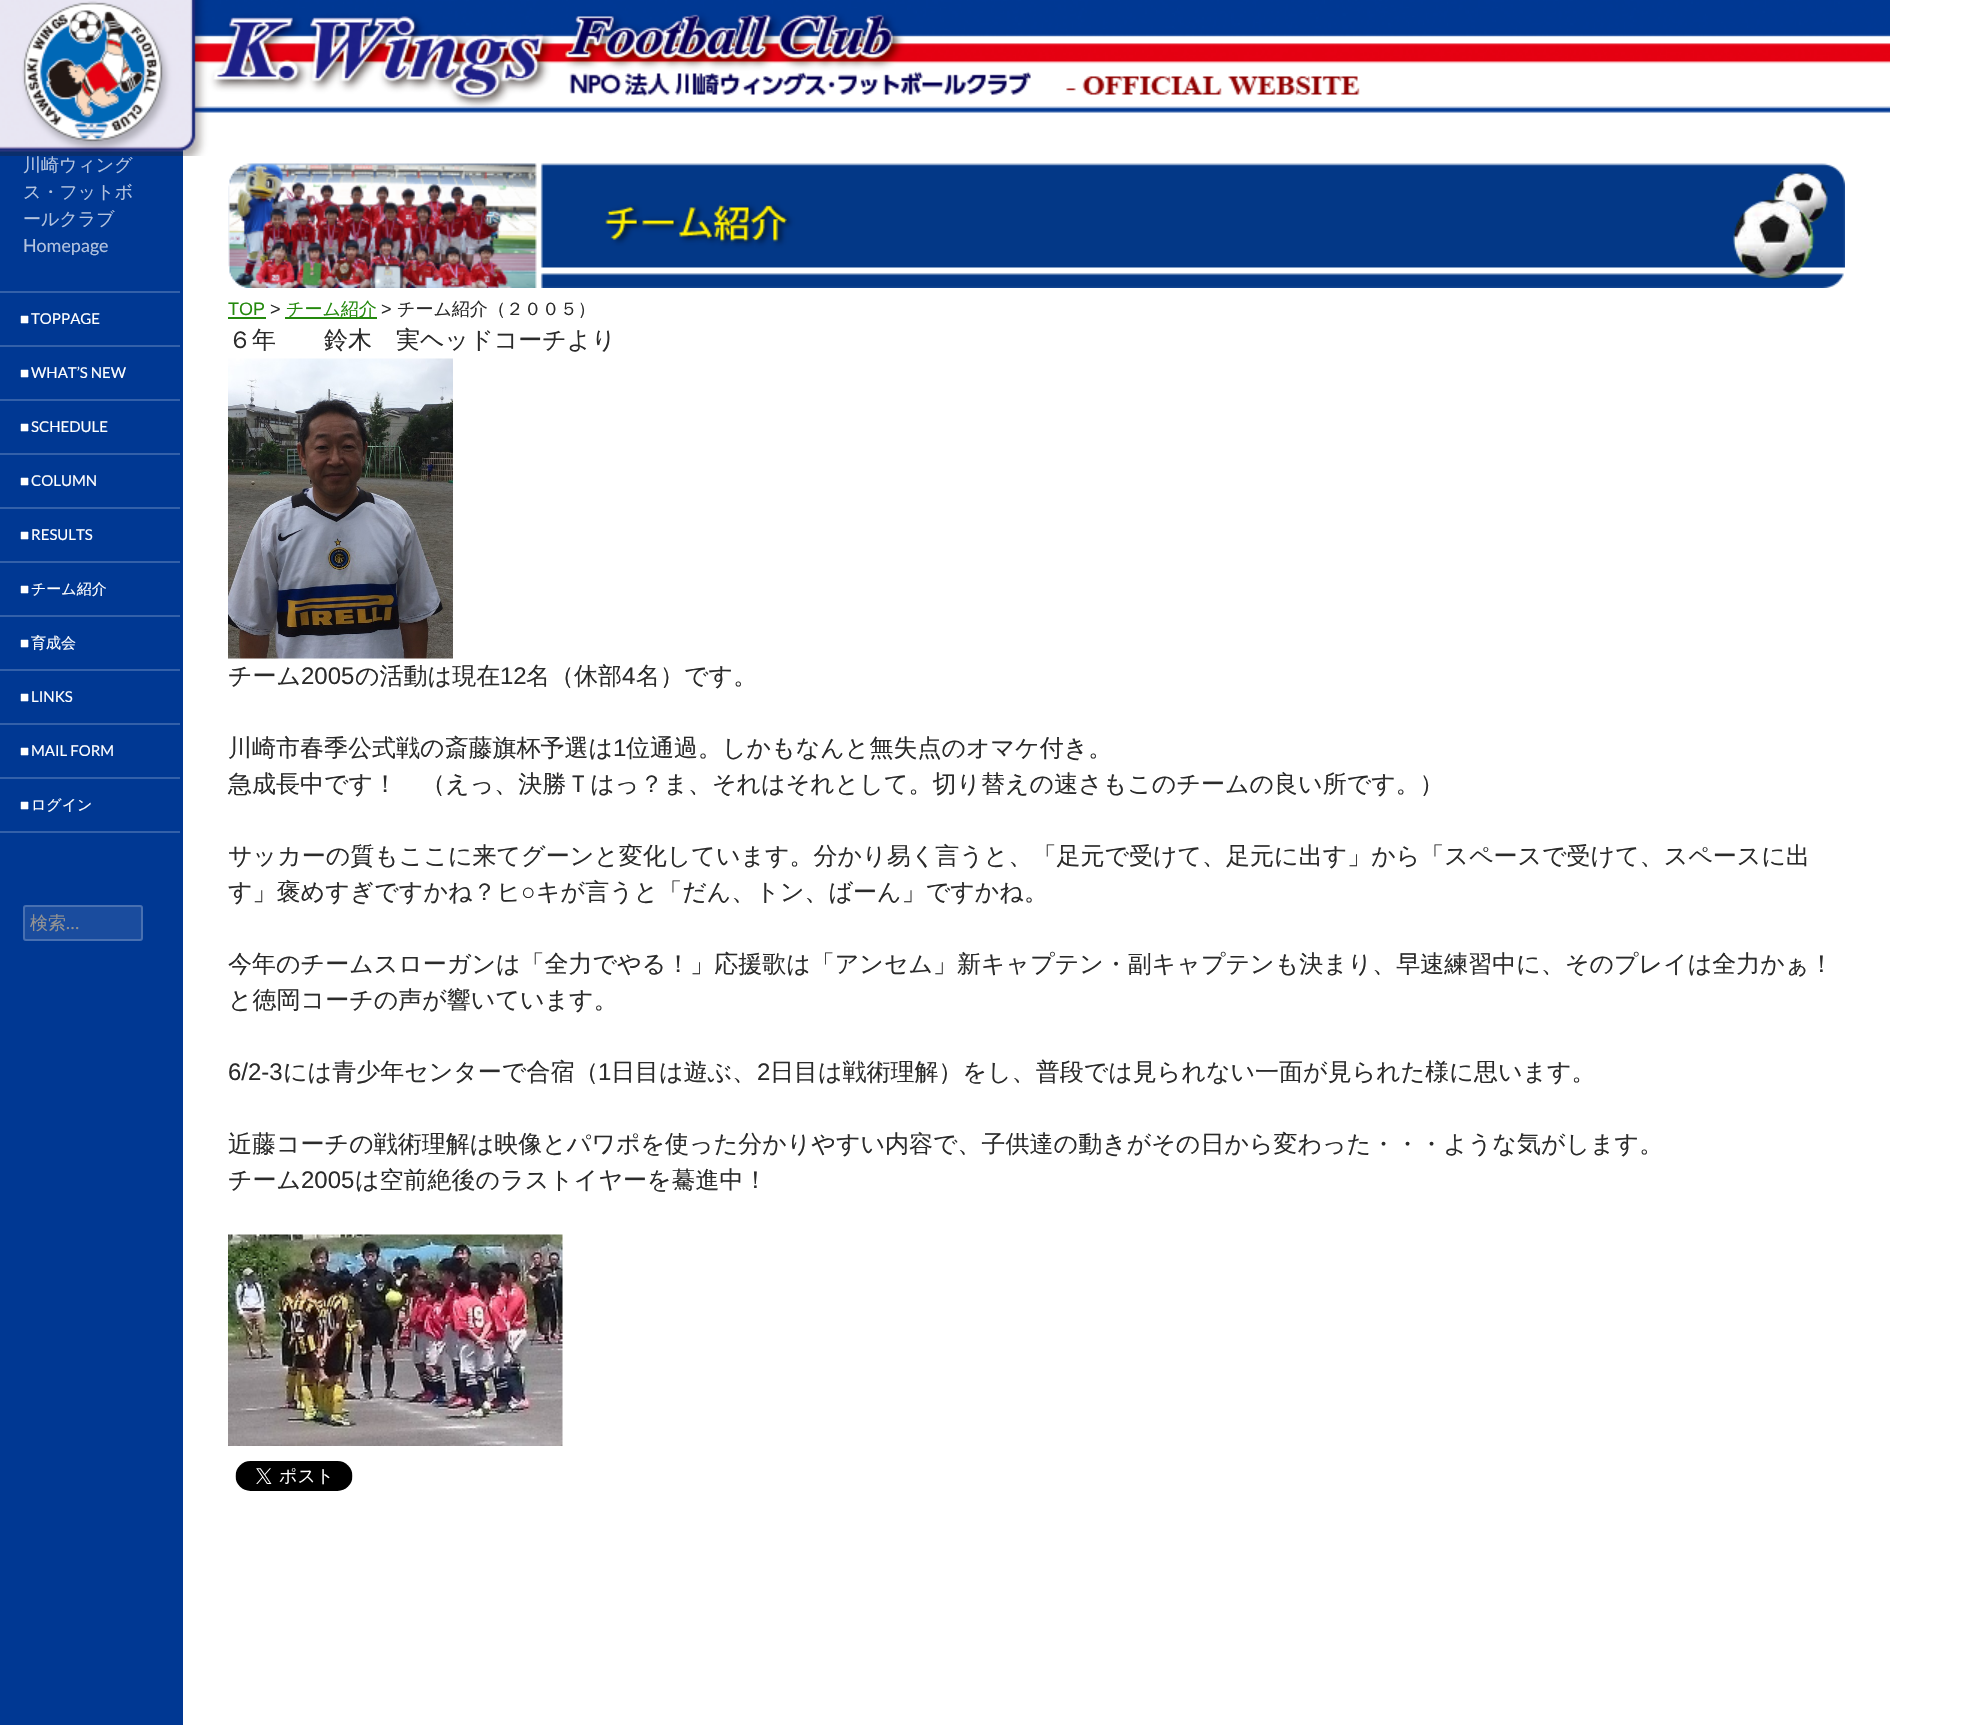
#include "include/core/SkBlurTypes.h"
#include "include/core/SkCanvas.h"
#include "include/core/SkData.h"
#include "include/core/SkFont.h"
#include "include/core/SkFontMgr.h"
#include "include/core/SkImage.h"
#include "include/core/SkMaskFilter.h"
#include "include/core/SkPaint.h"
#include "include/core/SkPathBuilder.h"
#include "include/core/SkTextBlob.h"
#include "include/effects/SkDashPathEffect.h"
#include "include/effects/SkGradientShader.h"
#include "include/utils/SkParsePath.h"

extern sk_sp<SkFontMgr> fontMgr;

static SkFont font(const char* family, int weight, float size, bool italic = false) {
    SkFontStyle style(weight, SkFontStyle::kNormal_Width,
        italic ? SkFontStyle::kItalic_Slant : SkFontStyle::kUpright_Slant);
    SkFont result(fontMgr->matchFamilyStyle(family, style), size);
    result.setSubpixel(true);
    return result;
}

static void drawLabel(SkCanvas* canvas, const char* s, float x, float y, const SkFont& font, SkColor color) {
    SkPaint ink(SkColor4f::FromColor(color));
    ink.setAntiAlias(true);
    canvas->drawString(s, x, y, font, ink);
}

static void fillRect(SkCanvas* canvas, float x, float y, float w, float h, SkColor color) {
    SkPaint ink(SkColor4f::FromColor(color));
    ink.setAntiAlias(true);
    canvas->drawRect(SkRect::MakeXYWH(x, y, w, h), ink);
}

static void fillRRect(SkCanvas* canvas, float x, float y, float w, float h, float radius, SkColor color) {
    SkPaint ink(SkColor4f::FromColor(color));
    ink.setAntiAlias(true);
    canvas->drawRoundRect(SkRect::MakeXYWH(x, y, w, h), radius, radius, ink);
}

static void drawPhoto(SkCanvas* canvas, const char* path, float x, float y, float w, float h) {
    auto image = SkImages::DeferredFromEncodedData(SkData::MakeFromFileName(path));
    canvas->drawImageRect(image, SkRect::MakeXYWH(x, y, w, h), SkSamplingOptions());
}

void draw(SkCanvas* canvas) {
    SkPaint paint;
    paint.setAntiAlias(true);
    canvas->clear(0xFFFFFFFF);
    fillRect(canvas, 0, 149, 183, 1576, 0xFF003893);
    drawPhoto(canvas, "assets/img1.png", 0, 0, 1890, 156);
    SkFont font1 = font("WenQuanYi Zen Hei", 500, 18);
    drawLabel(canvas, "川崎ウィング", 23, 171, font1, 0xFFB3C3DF);
    drawLabel(canvas, "ス・フットボ", 23, 198, font1, 0xFFB3C3DF);
    drawLabel(canvas, "ールクラブ", 23, 225, font1, 0xFFB3C3DF);
    SkFont font2 = font("Lato", 400, 18);
    drawLabel(canvas, "Homepage", 23, 252, font2, 0xFFB3C3DF);
    fillRect(canvas, 0, 831, 180, 2, 0xFF3360A9);
    fillRect(canvas, 0, 291, 180, 2, 0xFF3360A9);
    SkFont font3 = font("Liberation Sans", 400, 15);
    drawLabel(canvas, "■", 20, 324, font3, 0xFFFFFFFF);
    SkFont font4 = font("Lato", 400, 15);
    drawLabel(canvas, "TOPPAGE", 31, 324, font4, 0xFFFFFFFF);
    fillRect(canvas, 0, 345, 180, 2, 0xFF3360A9);
    drawLabel(canvas, "■", 20, 378, font3, 0xFFFFFFFF);
    drawLabel(canvas, "WHAT’S NEW", 31, 378, font4, 0xFFFFFFFF);
    fillRect(canvas, 0, 399, 180, 2, 0xFF3360A9);
    drawLabel(canvas, "■", 20, 432, font3, 0xFFFFFFFF);
    drawLabel(canvas, "SCHEDULE", 31, 432, font4, 0xFFFFFFFF);
    fillRect(canvas, 0, 453, 180, 2, 0xFF3360A9);
    drawLabel(canvas, "■", 20, 486, font3, 0xFFFFFFFF);
    drawLabel(canvas, "COLUMN", 31, 486, font4, 0xFFFFFFFF);
    fillRect(canvas, 0, 507, 180, 2, 0xFF3360A9);
    drawLabel(canvas, "■", 20, 540, font3, 0xFFFFFFFF);
    drawLabel(canvas, "RESULTS", 31, 540, font4, 0xFFFFFFFF);
    fillRect(canvas, 0, 561, 180, 2, 0xFF3360A9);
    drawLabel(canvas, "■", 20, 594, font3, 0xFFFFFFFF);
    SkFont font5 = font("WenQuanYi Zen Hei", 500, 15);
    drawLabel(canvas, "チーム紹介", 31, 594, font5, 0xFFFFFFFF);
    fillRect(canvas, 0, 615, 180, 2, 0xFF3360A9);
    drawLabel(canvas, "■", 20, 648, font3, 0xFFFFFFFF);
    drawLabel(canvas, "育成会", 31, 648, font5, 0xFFFFFFFF);
    fillRect(canvas, 0, 669, 180, 2, 0xFF3360A9);
    drawLabel(canvas, "■", 20, 702, font3, 0xFFFFFFFF);
    drawLabel(canvas, "LINKS", 31, 702, font4, 0xFFFFFFFF);
    fillRect(canvas, 0, 723, 180, 2, 0xFF3360A9);
    drawLabel(canvas, "■", 20, 756, font3, 0xFFFFFFFF);
    drawLabel(canvas, "MAIL FORM", 31, 756, font4, 0xFFFFFFFF);
    fillRect(canvas, 0, 777, 180, 2, 0xFF3360A9);
    drawLabel(canvas, "■", 20, 810, font3, 0xFFFFFFFF);
    drawLabel(canvas, "ログイン", 31, 810, font5, 0xFFFFFFFF);
    fillRRect(canvas, 23, 905, 120, 36, 3, 0xFF1A4C9E);
    paint.setStroke(true);
    paint.setStrokeWidth(2);
    paint.setColor(0x33FFFFFF);
    canvas->drawRoundRect(SkRect::MakeXYWH(24, 906, 118, 34), 2, 2, paint);
    drawLabel(canvas, "検索", 30, 929, font1, 0xFF939393);
    drawLabel(canvas, "…", 66, 929, font2, 0xFF939393);
    drawPhoto(canvas, "assets/img2.png", 228, 163, 1617, 125);
    SkFont font6 = font("Liberation Sans", 400, 18);
    drawLabel(canvas, "TOP", 228, 315, font6, 0xFF24890D);
    fillRect(canvas, 228, 317, 38, 2, 0xFF24890D);
    drawLabel(canvas, ">", 270, 315, font6, 0xFF2B2B2B);
    fillRect(canvas, 285, 317, 92, 2, 0xFF24890D);
    drawLabel(canvas, "チーム紹介", 286, 315, font1, 0xFF24890D);
    drawLabel(canvas, ">", 381, 315, font6, 0xFF2B2B2B);
    drawLabel(canvas, "チーム紹介（２００５）", 397, 315, font1, 0xFF2B2B2B);
    SkFont font7 = font("WenQuanYi Zen Hei", 500, 24);
    drawLabel(canvas, "６年　　鈴木　実ヘッドコーチより", 228, 348, font7, 0xFF2B2B2B);
    drawPhoto(canvas, "assets/img3.png", 228, 358, 225, 301);
    drawLabel(canvas, "チーム", 228, 684, font7, 0xFF2B2B2B);
    SkFont font8 = font("Liberation Sans", 400, 24);
    drawLabel(canvas, "2005", 301, 684, font8, 0xFF2B2B2B);
    drawLabel(canvas, "の活動は現在", 355, 684, font7, 0xFF2B2B2B);
    drawLabel(canvas, "12", 500, 684, font8, 0xFF2B2B2B);
    drawLabel(canvas, "名（休部", 526, 684, font7, 0xFF2B2B2B);
    drawLabel(canvas, "4", 622, 684, font8, 0xFF2B2B2B);
    drawLabel(canvas, "名）です。", 636, 684, font7, 0xFF2B2B2B);
    drawLabel(canvas, "川崎市春季公式戦の斎藤旗杯予選は", 228, 756, font7, 0xFF2B2B2B);
    drawLabel(canvas, "1", 613, 756, font8, 0xFF2B2B2B);
    drawLabel(canvas, "位通過。しかもなんと無失点のオマケ付き。", 626, 756, font7, 0xFF2B2B2B);
    drawLabel(canvas, "急成長中です！　（えっ、決勝Ｔはっ？ま、それはそれとして。切り替えの速さもこのチームの良い所です。）", 228, 792, font7, 0xFF2B2B2B);
    drawLabel(canvas, "サッカーの質もここに来てグーンと変化しています。分かり易く言うと、「足元で受けて、足元に出す」から「スペースで受けて、スペースに出", 228, 864, font7, 0xFF2B2B2B);
    drawLabel(canvas, "す」褒めすぎですかね？ヒ", 228, 900, font7, 0xFF2B2B2B);
    drawLabel(canvas, "○", 521, 900, font8, 0xFF2B2B2B);
    drawLabel(canvas, "キが言うと「だん、トン、ばーん」ですかね。", 536, 900, font7, 0xFF2B2B2B);
    drawLabel(canvas, "今年のチームスローガンは「全力でやる！」応援歌は「アンセム」新キャプテン・副キャプテンも決まり、早速練習中に、そのプレイは全力かぁ！", 228, 972, font7, 0xFF2B2B2B);
    drawLabel(canvas, "と徳岡コーチの声が響いています。", 228, 1008, font7, 0xFF2B2B2B);
    drawLabel(canvas, "6/2-3", 228, 1080, font8, 0xFF2B2B2B);
    drawLabel(canvas, "には青少年センターで合宿（", 283, 1080, font7, 0xFF2B2B2B);
    drawLabel(canvas, "1", 598, 1080, font8, 0xFF2B2B2B);
    drawLabel(canvas, "日目は遊ぶ、", 611, 1080, font7, 0xFF2B2B2B);
    drawLabel(canvas, "2", 757, 1080, font8, 0xFF2B2B2B);
    drawLabel(canvas, "日目は戦術理解）をし、普段では見られない一面が見られた様に思います。", 770, 1080, font7, 0xFF2B2B2B);
    drawLabel(canvas, "近藤コーチの戦術理解は映像とパワポを使った分かりやすい内容で、子供達の動きがその日から変わった・・・ような気がします。", 228, 1152, font7, 0xFF2B2B2B);
    drawLabel(canvas, "チーム", 228, 1188, font7, 0xFF2B2B2B);
    drawLabel(canvas, "2005", 301, 1188, font8, 0xFF2B2B2B);
    drawLabel(canvas, "は空前絶後のラストイヤーを驀進中！", 355, 1188, font7, 0xFF2B2B2B);
    drawPhoto(canvas, "assets/img4.png", 228, 1234, 335, 212);
    drawPhoto(canvas, "assets/img5.png", 235, 1461, 118, 30);
}
